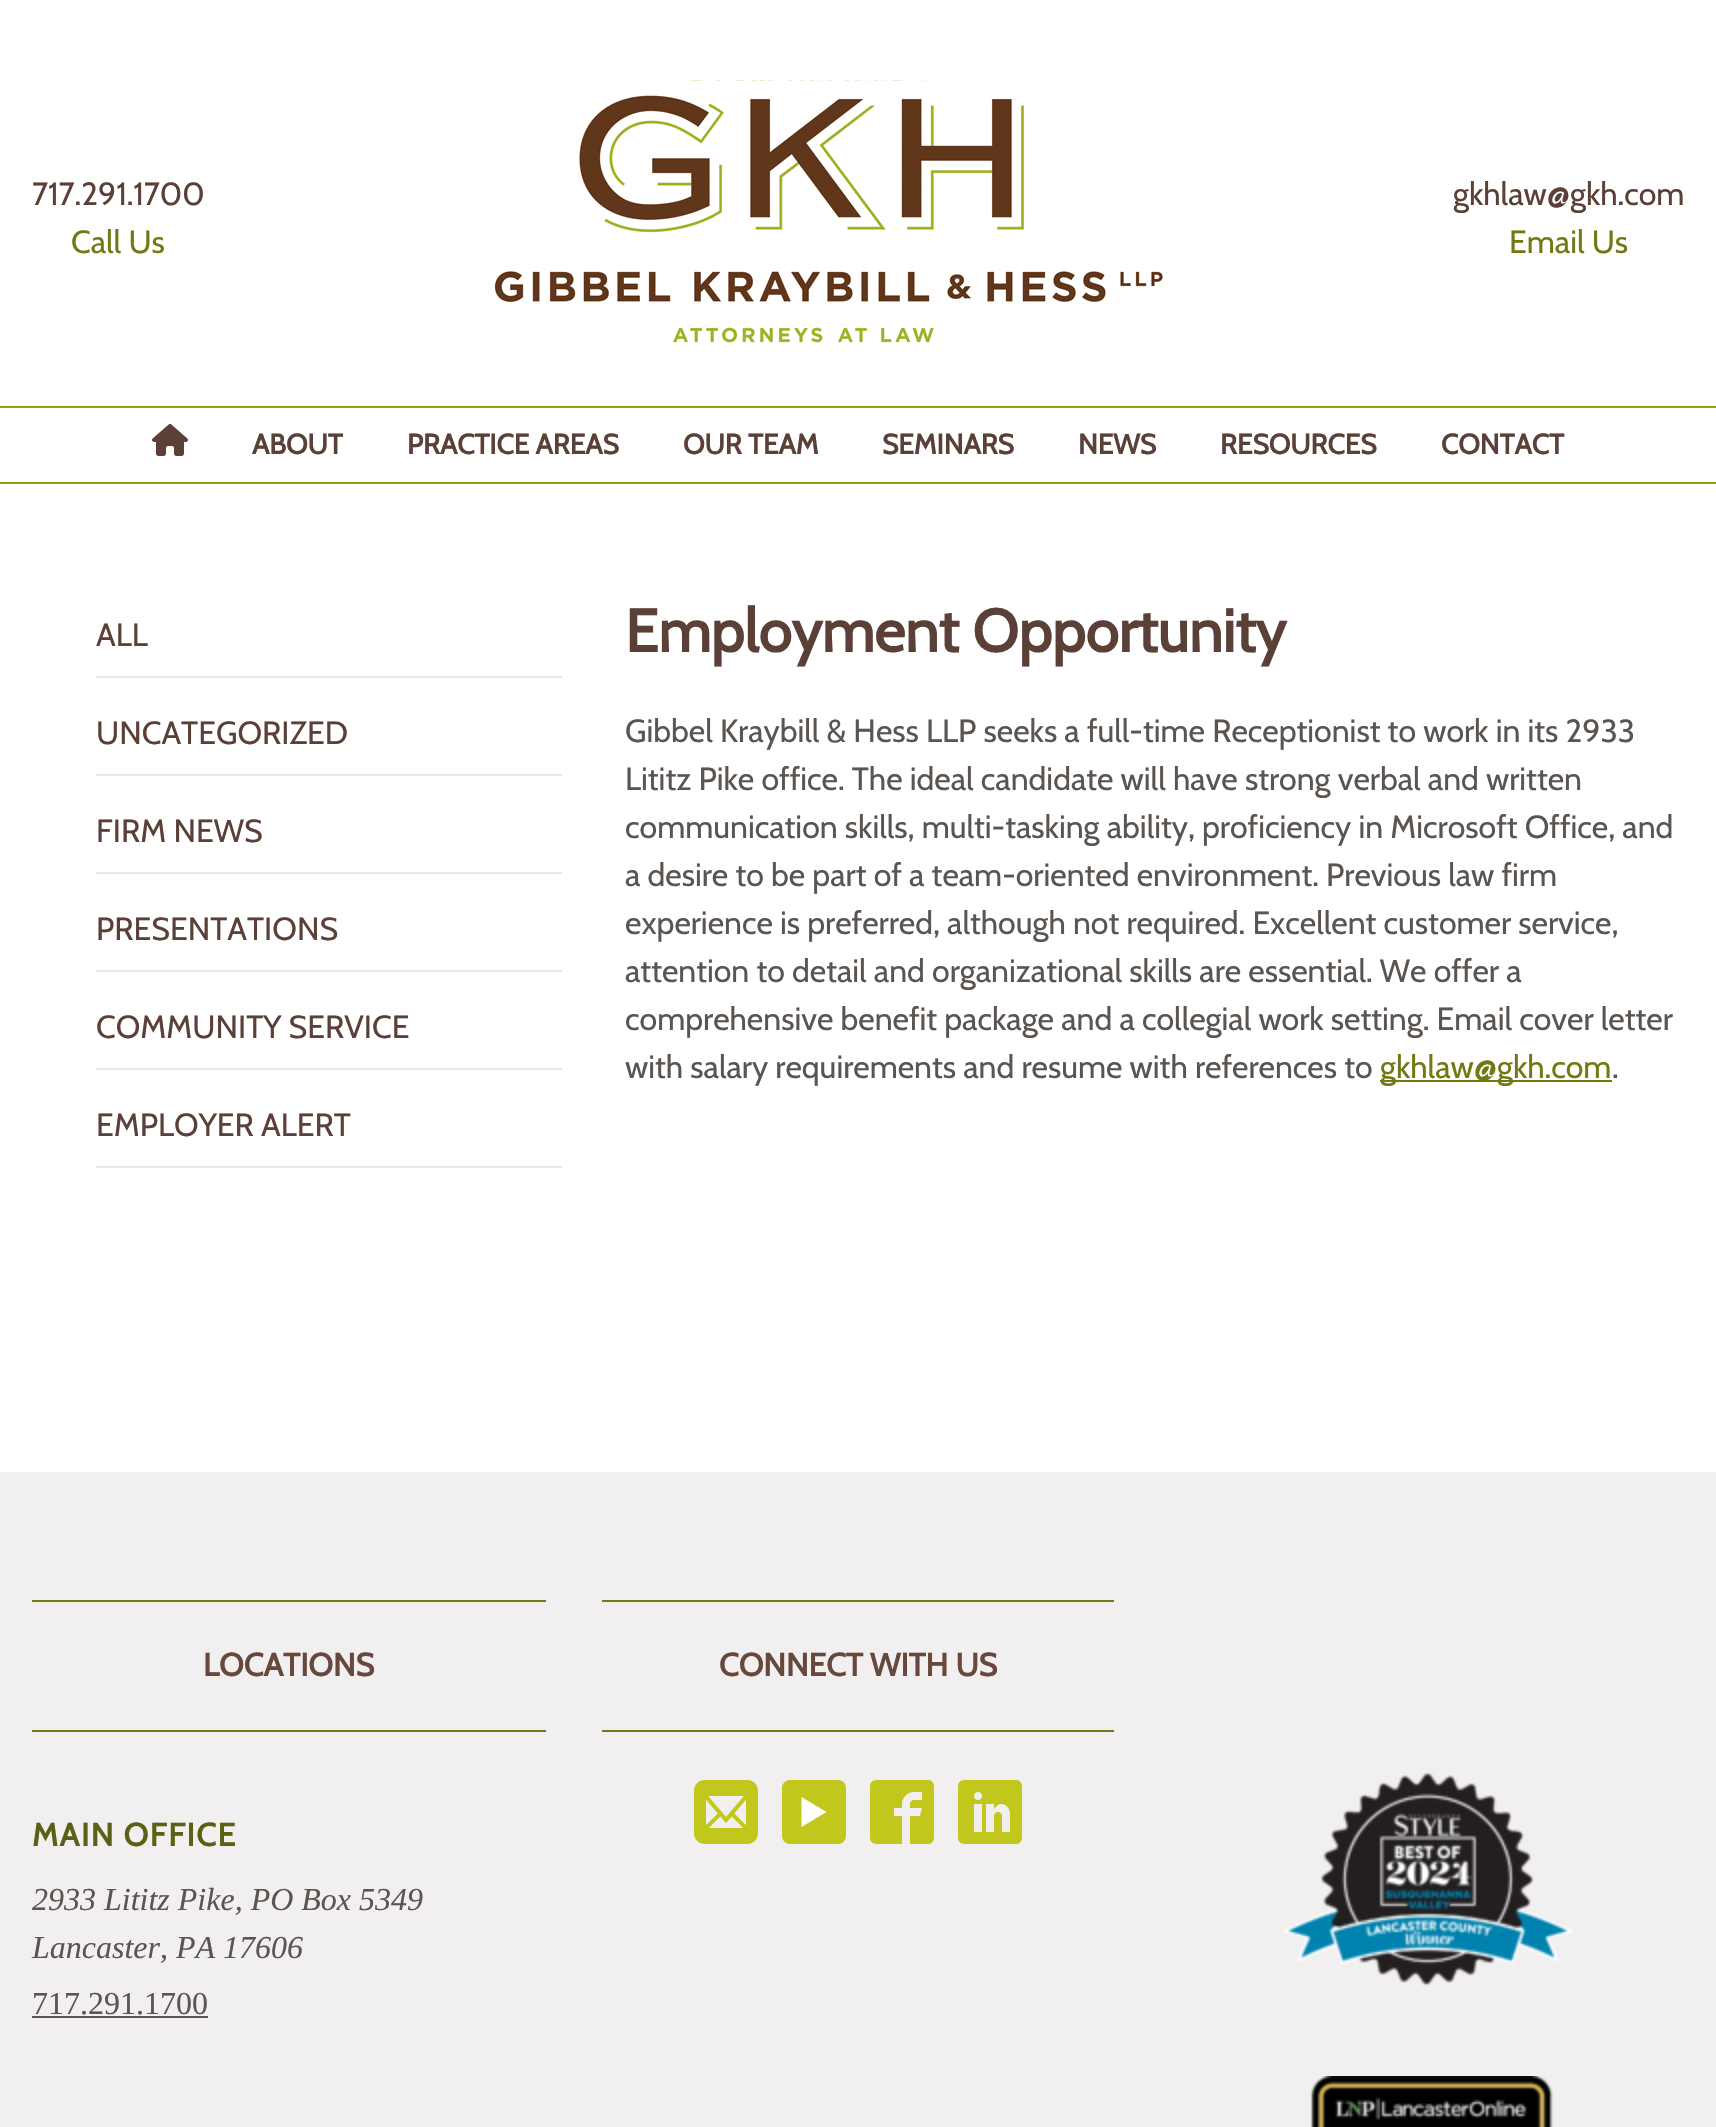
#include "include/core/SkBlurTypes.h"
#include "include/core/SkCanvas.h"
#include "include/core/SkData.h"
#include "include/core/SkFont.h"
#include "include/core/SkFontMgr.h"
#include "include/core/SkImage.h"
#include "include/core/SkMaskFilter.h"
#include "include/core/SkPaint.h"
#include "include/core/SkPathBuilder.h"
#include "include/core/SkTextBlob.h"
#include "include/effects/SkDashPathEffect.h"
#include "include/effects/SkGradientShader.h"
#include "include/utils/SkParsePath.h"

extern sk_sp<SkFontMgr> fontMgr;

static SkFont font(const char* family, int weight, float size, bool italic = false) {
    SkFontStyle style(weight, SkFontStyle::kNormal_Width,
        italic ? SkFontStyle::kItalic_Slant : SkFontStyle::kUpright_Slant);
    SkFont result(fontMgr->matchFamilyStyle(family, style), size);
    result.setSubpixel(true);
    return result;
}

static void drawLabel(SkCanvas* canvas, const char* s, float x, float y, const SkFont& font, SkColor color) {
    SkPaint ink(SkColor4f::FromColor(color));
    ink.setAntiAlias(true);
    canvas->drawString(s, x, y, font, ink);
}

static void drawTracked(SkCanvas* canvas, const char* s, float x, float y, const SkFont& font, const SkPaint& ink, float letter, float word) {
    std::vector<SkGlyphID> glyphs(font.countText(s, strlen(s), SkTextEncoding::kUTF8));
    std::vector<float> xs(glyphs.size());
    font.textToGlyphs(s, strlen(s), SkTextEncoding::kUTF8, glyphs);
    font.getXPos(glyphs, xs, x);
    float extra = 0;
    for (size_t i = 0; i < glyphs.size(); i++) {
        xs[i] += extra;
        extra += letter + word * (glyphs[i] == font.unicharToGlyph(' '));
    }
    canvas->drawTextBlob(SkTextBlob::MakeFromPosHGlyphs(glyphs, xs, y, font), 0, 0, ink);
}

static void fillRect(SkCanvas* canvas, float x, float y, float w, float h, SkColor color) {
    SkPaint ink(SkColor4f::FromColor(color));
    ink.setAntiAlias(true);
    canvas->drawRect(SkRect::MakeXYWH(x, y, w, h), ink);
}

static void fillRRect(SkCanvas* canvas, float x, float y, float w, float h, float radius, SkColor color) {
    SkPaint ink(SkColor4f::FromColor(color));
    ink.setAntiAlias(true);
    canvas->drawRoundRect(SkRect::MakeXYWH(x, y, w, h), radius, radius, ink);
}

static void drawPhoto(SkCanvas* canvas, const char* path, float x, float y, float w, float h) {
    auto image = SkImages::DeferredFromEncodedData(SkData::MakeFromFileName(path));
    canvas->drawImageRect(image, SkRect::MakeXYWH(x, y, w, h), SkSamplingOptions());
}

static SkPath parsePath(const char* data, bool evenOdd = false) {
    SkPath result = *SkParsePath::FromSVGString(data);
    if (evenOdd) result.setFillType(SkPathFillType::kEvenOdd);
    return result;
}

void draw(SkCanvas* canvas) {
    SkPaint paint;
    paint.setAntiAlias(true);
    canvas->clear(0xFFFFFFFF);
    SkFont font1 = font("Cabin", 400, 32);
    drawLabel(canvas, "717.291.1700", 32, 205, font1, 0xFF5B4038);
    drawLabel(canvas, "Call Us", 71, 253, font1, 0xFF727912);
    drawPhoto(canvas, "assets/img1.png", 494, 80, 669, 278);
    drawLabel(canvas, "gkhlaw@gkh.com", 1453, 205, font1, 0xFF5B4038);
    drawLabel(canvas, "Email Us", 1509, 253, font1, 0xFF727912);
    fillRect(canvas, 0, 406, 1716, 2, 0xFF989F11);
    fillRect(canvas, 0, 482, 1716, 2, 0xFF989F11);
    drawPhoto(canvas, "assets/img2.png", 152, 424, 36, 32);
    SkFont font2 = font("Cabin", 700, 28);
    drawLabel(canvas, "ABOUT", 252, 454, font2, 0xFF5B4038);
    drawLabel(canvas, "PRACTICE AREAS", 407, 454, font2, 0xFF5B4038);
    drawLabel(canvas, "OUR TEAM", 683, 454, font2, 0xFF5B4038);
    drawLabel(canvas, "SEMINARS", 882, 454, font2, 0xFF5B4038);
    drawLabel(canvas, "NEWS", 1078, 454, font2, 0xFF5B4038);
    drawLabel(canvas, "RESOURCES", 1220, 454, font2, 0xFF5B4038);
    drawLabel(canvas, "CONTACT", 1441, 454, font2, 0xFF5B4038);
    fillRect(canvas, 96, 676, 466, 2, 0xFFE5E7EB);
    drawLabel(canvas, "ALL", 96, 646, font1, 0xFF5B4038);
    fillRect(canvas, 96, 774, 466, 2, 0xFFE5E7EB);
    drawLabel(canvas, "UNCATEGORIZED", 96, 744, font1, 0xFF5B4038);
    fillRect(canvas, 96, 872, 466, 2, 0xFFE5E7EB);
    drawLabel(canvas, "FIRM NEWS", 96, 842, font1, 0xFF5B4038);
    fillRect(canvas, 96, 970, 466, 2, 0xFFE5E7EB);
    drawLabel(canvas, "PRESENTATIONS", 96, 940, font1, 0xFF5B4038);
    fillRect(canvas, 96, 1068, 466, 2, 0xFFE5E7EB);
    drawLabel(canvas, "COMMUNITY SERVICE", 96, 1038, font1, 0xFF5B4038);
    fillRect(canvas, 96, 1166, 466, 2, 0xFFE5E7EB);
    drawLabel(canvas, "EMPLOYER ALERT", 96, 1136, font1, 0xFF5B4038);
    SkFont font3 = font("Cabin", 700, 60);
    drawLabel(canvas, "Employment Opportunity", 625, 652, font3, 0xFF5B4038);
    drawLabel(canvas, "Gibbel Kraybill & Hess LLP seeks a full-time Receptionist to work in its 2933", 625, 742, font1, 0xFF5B5551);
    drawLabel(canvas, "Lititz Pike office. The ideal candidate will have strong verbal and written", 625, 790, font1, 0xFF5B5551);
    drawLabel(canvas, "communication skills, multi-tasking ability, proficiency in Microsoft Office, and", 625, 838, font1, 0xFF5B5551);
    drawLabel(canvas, "a desire to be part of a team-oriented environment. Previous law firm", 625, 886, font1, 0xFF5B5551);
    drawLabel(canvas, "experience is preferred, although not required. Excellent customer service,", 625, 934, font1, 0xFF5B5551);
    drawLabel(canvas, "attention to detail and organizational skills are essential. We offer a", 625, 982, font1, 0xFF5B5551);
    drawLabel(canvas, "comprehensive benefit package and a collegial work setting. Email cover letter", 625, 1030, font1, 0xFF5B5551);
    drawLabel(canvas, "with salary requirements and resume with references to", 625, 1078, font1, 0xFF5B5551);
    fillRect(canvas, 1380, 1080, 232, 2, 0xFF727912);
    drawLabel(canvas, "gkhlaw@gkh.com", 1380, 1078, font1, 0xFF727912);
    drawLabel(canvas, ".", 1612, 1078, font1, 0xFF5B5551);
    fillRect(canvas, 0, 1472, 1716, 655, 0xFFF1EFEF);
    fillRect(canvas, 32, 1600, 514, 2, 0xFF727912);
    fillRect(canvas, 32, 1730, 514, 2, 0xFF727912);
    SkFont font4 = font("Cabin", 700, 32);
    drawLabel(canvas, "LOCATIONS", 203, 1676, font4, 0xFF67483C);
    paint.setColor(0xFF5B6014);
    drawTracked(canvas, "MAIN OFFICE", 32, 1846, font4, paint, 1.6f, 0);
    SkFont font5 = font("Liberation Serif", 400, 32, true);
    drawLabel(canvas, "2933 Lititz Pike, PO Box 5349", 32, 1910, font5, 0xFF5B5551);
    drawLabel(canvas, "Lancaster, PA 17606", 32, 1958, font5, 0xFF5B5551);
    SkFont font6 = font("Liberation Serif", 400, 32);
    drawLabel(canvas, "717.291.1700", 32, 2014, font6, 0xFF5B5551);
    fillRect(canvas, 32, 2016, 176, 2, 0xFF5B5551);
    fillRect(canvas, 602, 1600, 512, 2, 0xFF727912);
    fillRect(canvas, 602, 1730, 512, 2, 0xFF727912);
    drawLabel(canvas, "CONNECT WITH US", 719, 1676, font4, 0xFF67483C);
    drawPhoto(canvas, "assets/img3.png", 694, 1780, 64, 64);
    fillRRect(canvas, 782, 1780, 64, 64, 8, 0xFFC1C71B);
    paint.setColor(0xFFFFFFFF);
    canvas->drawPath(parsePath("M801.5 1797L826.5 1812L801.5 1827Z"), paint);
    drawPhoto(canvas, "assets/img4.png", 870, 1780, 64, 64);
    drawPhoto(canvas, "assets/img5.png", 958, 1780, 64, 64);
    drawPhoto(canvas, "assets/img6.png", 1283, 1772, 290, 214);
    drawPhoto(canvas, "assets/img7.png", 1310, 2076, 243, 51);
}
